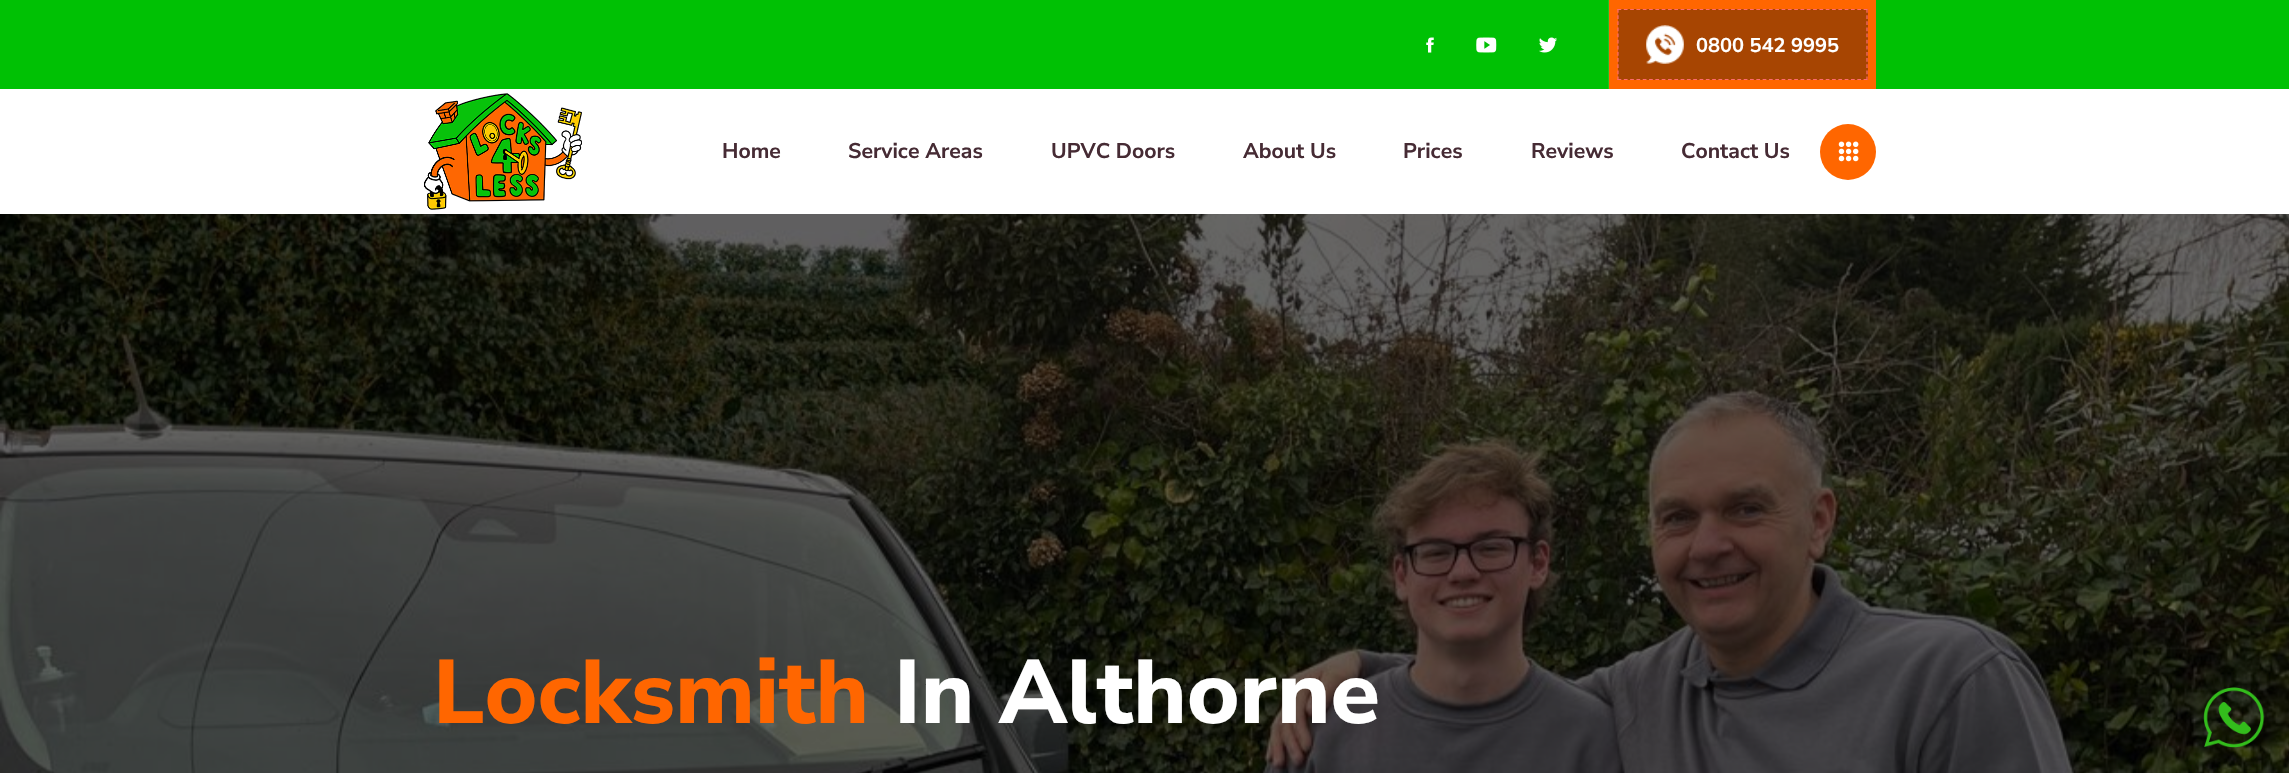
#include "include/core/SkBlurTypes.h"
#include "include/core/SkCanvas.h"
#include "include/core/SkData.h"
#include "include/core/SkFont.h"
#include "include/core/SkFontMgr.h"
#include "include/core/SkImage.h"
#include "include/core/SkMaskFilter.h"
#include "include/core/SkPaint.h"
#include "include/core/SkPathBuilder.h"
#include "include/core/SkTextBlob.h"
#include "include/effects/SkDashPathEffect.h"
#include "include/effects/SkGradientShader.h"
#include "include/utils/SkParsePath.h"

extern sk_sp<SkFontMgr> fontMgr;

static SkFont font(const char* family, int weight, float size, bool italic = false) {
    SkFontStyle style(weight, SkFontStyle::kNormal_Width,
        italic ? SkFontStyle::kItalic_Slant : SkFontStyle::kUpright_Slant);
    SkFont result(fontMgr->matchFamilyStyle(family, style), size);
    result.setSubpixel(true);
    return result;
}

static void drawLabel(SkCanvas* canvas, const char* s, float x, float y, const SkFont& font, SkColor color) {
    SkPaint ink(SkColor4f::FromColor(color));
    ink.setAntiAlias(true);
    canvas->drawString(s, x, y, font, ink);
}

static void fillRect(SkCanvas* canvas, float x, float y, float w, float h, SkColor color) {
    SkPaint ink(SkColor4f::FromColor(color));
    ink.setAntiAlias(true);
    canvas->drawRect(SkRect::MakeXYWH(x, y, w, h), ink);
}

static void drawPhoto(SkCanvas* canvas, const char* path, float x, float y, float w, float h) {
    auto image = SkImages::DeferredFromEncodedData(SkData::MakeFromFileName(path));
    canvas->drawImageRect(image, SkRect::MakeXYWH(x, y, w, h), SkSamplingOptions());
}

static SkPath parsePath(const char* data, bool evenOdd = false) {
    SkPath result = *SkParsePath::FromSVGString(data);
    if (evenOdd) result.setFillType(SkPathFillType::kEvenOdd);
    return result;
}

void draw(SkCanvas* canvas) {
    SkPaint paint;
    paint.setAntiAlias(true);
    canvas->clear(0xFFFFFFFF);
    fillRect(canvas, 0, 0, 2289, 89, 0xFF00C104);
    drawPhoto(canvas, "assets/img1.png", 1426, 37, 8, 16);
    drawPhoto(canvas, "assets/img2.png", 1476, 37, 21, 16);
    drawPhoto(canvas, "assets/img3.png", 1539, 37, 18, 16);
    fillRect(canvas, 1608, 0, 1, 89, 0xFF1AC71D);
    fillRect(canvas, 1609, 0, 267, 89, 0xFFFF6600);
    fillRect(canvas, 1618, 9, 250, 71, 0xFFA74502);
    paint.setStroke(true);
    paint.setStrokeWidth(1.2f);
    paint.setColor(0xFFFF6B6D);
    paint.setPathEffect(SkDashPathEffect::Make({{3.75f, 2.56f}}, 0));
    canvas->drawPath(parsePath("M1617.5 9.5H1867.5"), paint);
    paint.setPathEffect(nullptr);
    paint.setPathEffect(SkDashPathEffect::Make({{3.75f, 2.39f}}, 0));
    canvas->drawPath(parsePath("M1867 9V80"), paint);
    paint.setPathEffect(nullptr);
    paint.setPathEffect(SkDashPathEffect::Make({{3.75f, 2.56f}}, 0));
    canvas->drawPath(parsePath("M1617.5 79.5H1867.5"), paint);
    paint.setPathEffect(nullptr);
    paint.setPathEffect(SkDashPathEffect::Make({{3.75f, 2.39f}}, 0));
    canvas->drawPath(parsePath("M1618 9V80"), paint);
    paint.setPathEffect(nullptr);
    drawPhoto(canvas, "assets/img4.png", 1646, 25, 38, 39);
    SkFont font1 = font("Mulish", 700, 20);
    drawLabel(canvas, "0800 542 9995", 1696, 52, font1, 0xFFFFFFFF);
    drawPhoto(canvas, "assets/img5.png", 424, 93, 158, 117);
    SkFont font2 = font("Nunito Sans", 700, 21.25f);
    drawLabel(canvas, "Home", 722, 158, font2, 0xFF462B34);
    drawLabel(canvas, "Service Areas", 848, 158, font2, 0xFF462B34);
    drawLabel(canvas, "UPVC Doors", 1051, 158, font2, 0xFF462B34);
    drawLabel(canvas, "About Us", 1243, 158, font2, 0xFF462B34);
    drawLabel(canvas, "Prices", 1403, 158, font2, 0xFF462B34);
    drawLabel(canvas, "Reviews", 1531, 158, font2, 0xFF462B34);
    drawLabel(canvas, "Contact Us", 1681, 158, font2, 0xFF462B34);
    paint.setStroke(false);
    paint.setColor(0xFFFF6600);
    canvas->drawCircle(1848, 152, 28, paint);
    drawPhoto(canvas, "assets/img6.png", 1838, 141, 21, 21);
    drawPhoto(canvas, "assets/img7.png", 0, 214, 2289, 559);
    SkFont font3 = font("Nunito Sans", 800, 90);
    drawLabel(canvas, "Locksmith", 433, 723, font3, 0xFFFF6600);
    drawLabel(canvas, "In Althorne", 894, 723, font3, 0xFFFFFFFF);
    drawPhoto(canvas, "assets/img8.png", 2203, 687, 62, 61);
}
